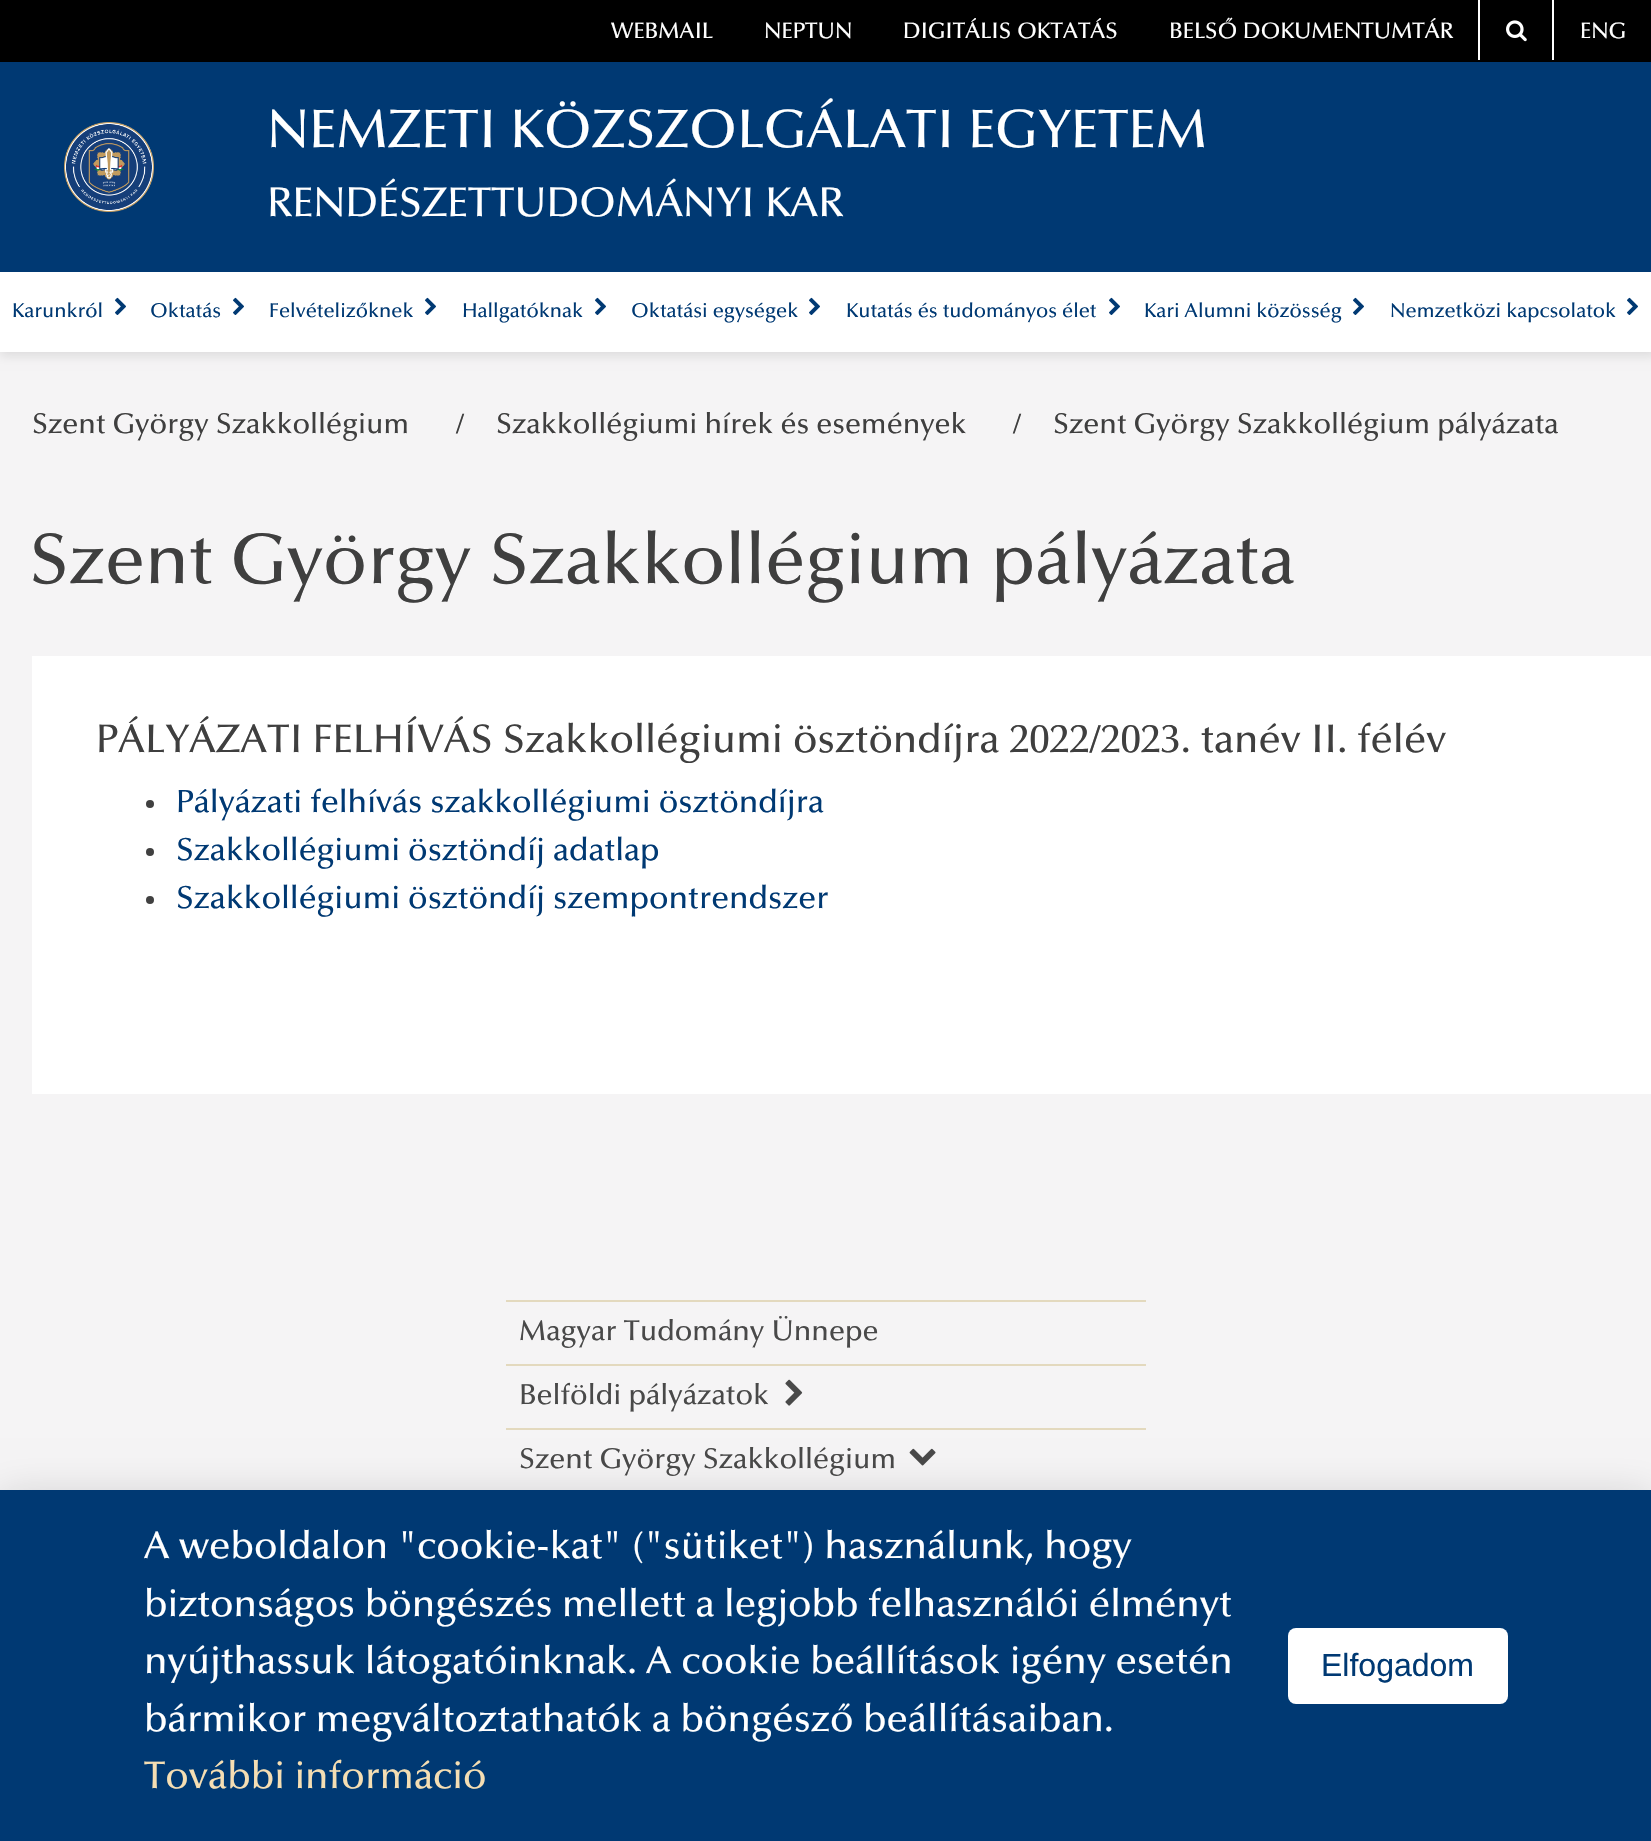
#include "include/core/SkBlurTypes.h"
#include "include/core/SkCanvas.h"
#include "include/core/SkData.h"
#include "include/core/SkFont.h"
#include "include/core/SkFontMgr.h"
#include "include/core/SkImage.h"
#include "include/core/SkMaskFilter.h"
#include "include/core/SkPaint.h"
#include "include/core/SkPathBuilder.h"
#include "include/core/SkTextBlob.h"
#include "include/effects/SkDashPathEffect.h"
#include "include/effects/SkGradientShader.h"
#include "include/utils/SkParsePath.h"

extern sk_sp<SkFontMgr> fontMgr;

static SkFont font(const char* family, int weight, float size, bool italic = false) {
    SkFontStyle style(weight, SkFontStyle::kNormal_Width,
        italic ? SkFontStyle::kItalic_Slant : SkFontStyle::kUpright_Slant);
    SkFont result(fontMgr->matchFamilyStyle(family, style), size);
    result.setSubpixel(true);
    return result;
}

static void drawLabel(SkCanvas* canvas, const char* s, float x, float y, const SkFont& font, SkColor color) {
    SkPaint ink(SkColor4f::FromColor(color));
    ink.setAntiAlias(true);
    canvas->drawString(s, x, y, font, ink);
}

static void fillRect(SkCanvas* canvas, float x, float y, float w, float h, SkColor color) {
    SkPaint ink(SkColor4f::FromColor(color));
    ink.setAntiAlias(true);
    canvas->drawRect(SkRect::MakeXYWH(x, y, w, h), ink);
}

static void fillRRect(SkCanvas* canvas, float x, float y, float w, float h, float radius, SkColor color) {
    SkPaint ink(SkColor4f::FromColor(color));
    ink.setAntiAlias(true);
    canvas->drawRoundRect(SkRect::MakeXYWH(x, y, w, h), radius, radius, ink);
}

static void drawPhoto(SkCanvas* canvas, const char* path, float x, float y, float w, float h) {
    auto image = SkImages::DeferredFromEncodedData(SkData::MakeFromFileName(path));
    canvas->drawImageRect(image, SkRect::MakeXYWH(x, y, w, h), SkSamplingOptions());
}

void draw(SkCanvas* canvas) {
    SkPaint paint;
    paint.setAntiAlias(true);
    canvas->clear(0xFFF5F4F5);
    paint.setColor(0x1A000000);
    paint.setMaskFilter(SkMaskFilter::MakeBlur(kNormal_SkBlurStyle, 5));
    canvas->drawRect(SkRect::MakeXYWH(0, 0, 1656, 356), paint);
    paint.setMaskFilter(nullptr);
    fillRect(canvas, 0, 62, 1651, 210, 0xFF003973);
    fillRect(canvas, 0, 0, 1651, 62, 0xFF000000);
    SkFont font1 = font("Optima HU", 500, 22.4f);
    drawLabel(canvas, "WEBMAIL", 611, 38, font1, 0xFFFFFFFF);
    drawLabel(canvas, "NEPTUN", 764, 38, font1, 0xFFFFFFFF);
    drawLabel(canvas, "DIGITÁLIS OKTATÁS", 903, 38, font1, 0xFFFFFFFF);
    drawLabel(canvas, "BELSŐ DOKUMENTUMTÁR", 1169, 38, font1, 0xFFFFFFFF);
    fillRect(canvas, 1478, 0, 2, 60, 0xFFFFFFFF);
    drawPhoto(canvas, "assets/img1.png", 1506, 20, 21, 22);
    fillRect(canvas, 1552, 0, 2, 60, 0xFFFFFFFF);
    drawLabel(canvas, "ENG", 1580, 38, font1, 0xFFFFFFFF);
    drawPhoto(canvas, "assets/img2.png", 64, 122, 90, 90);
    SkFont font2 = font("Optima HU", 500, 54.4f);
    drawLabel(canvas, "NEMZETI KÖZSZOLGÁLATI EGYETEM", 267, 147, font2, 0xFFFFFFFF);
    SkFont font3 = font("Optima HU", 500, 41.6f);
    drawLabel(canvas, "RENDÉSZETTUDOMÁNYI KAR", 267, 216, font3, 0xFFFFFFFF);
    fillRect(canvas, 0, 272, 1651, 80, 0xFFFFFFFF);
    SkFont font4 = font("Optima HU", 500, 20);
    drawLabel(canvas, "Karunkról", 12, 317, font4, 0xFF003973);
    drawPhoto(canvas, "assets/img3.png", 115, 297, 11, 18);
    drawLabel(canvas, "Oktatás", 150, 317, font4, 0xFF003973);
    drawPhoto(canvas, "assets/img3.png", 233, 297, 11, 18);
    drawLabel(canvas, "Felvételizőknek", 269, 317, font4, 0xFF003973);
    drawPhoto(canvas, "assets/img3.png", 425, 297, 11, 18);
    drawLabel(canvas, "Hallgatóknak", 462, 317, font4, 0xFF003973);
    drawPhoto(canvas, "assets/img3.png", 595, 297, 11, 18);
    drawLabel(canvas, "Oktatási egységek", 631, 317, font4, 0xFF003973);
    drawPhoto(canvas, "assets/img3.png", 809, 297, 11, 18);
    drawLabel(canvas, "Kutatás és tudományos élet", 846, 317, font4, 0xFF003973);
    drawPhoto(canvas, "assets/img3.png", 1109, 297, 11, 18);
    drawLabel(canvas, "Kari Alumni közösség", 1144, 317, font4, 0xFF003973);
    drawPhoto(canvas, "assets/img3.png", 1353, 297, 11, 18);
    drawLabel(canvas, "Nemzetközi kapcsolatok", 1390, 317, font4, 0xFF003973);
    drawPhoto(canvas, "assets/img3.png", 1627, 297, 11, 18);
    SkFont font5 = font("Optima HU", 500, 28.75f);
    drawLabel(canvas, "Szent György Szakkollégium", 32, 433, font5, 0xFF3F3F3F);
    drawLabel(canvas, "/", 456, 433, font5, 0xFF3F3F3F);
    drawLabel(canvas, "Szakkollégiumi hírek és események", 496, 433, font5, 0xFF3F3F3F);
    drawLabel(canvas, "/", 1013, 433, font5, 0xFF3F3F3F);
    drawLabel(canvas, "Szent György Szakkollégium pályázata", 1053, 433, font5, 0xFF3F3F3F);
    SkFont font6 = font("Optima HU", 500, 72);
    drawLabel(canvas, "Szent György Szakkollégium pályázata", 29, 583, font6, 0xFF3F3F3F);
    fillRect(canvas, 32, 656, 1619, 438, 0xFFFFFFFF);
    SkFont font7 = font("Optima HU", 500, 40);
    drawLabel(canvas, "PÁLYÁZATI FELHÍVÁS Szakkollégiumi ösztöndíjra 2022/2023. tanév II. félév", 96, 752, font7, 0xFF3F3F3F);
    paint.setColor(0xFF404040);
    canvas->drawCircle(150, 804, 4, paint);
    SkFont font8 = font("Optima HU", 500, 32);
    drawLabel(canvas, "Pályázati felhívás szakkollégiumi ösztöndíjra", 176, 812, font8, 0xFF003973);
    canvas->drawCircle(150, 852, 4, paint);
    drawLabel(canvas, "Szakkollégiumi ösztöndíj adatlap", 176, 860, font8, 0xFF003973);
    canvas->drawCircle(150, 900, 4, paint);
    drawLabel(canvas, "Szakkollégiumi ösztöndíj szempontrendszer", 176, 908, font8, 0xFF003973);
    fillRect(canvas, 506, 1300, 640, 2, 0xFFE3D9BE);
    drawLabel(canvas, "Magyar Tudomány Ünnepe", 519, 1340, font5, 0xFF494949);
    fillRect(canvas, 506, 1364, 640, 2, 0xFFE3D9BE);
    drawLabel(canvas, "Belföldi pályázatok", 519, 1404, font5, 0xFF494949);
    drawPhoto(canvas, "assets/img4.png", 785, 1379, 18, 27);
    fillRect(canvas, 506, 1428, 640, 2, 0xFFE3D9BE);
    drawLabel(canvas, "Szent György Szakkollégium", 519, 1468, font5, 0xFF494949);
    drawPhoto(canvas, "assets/img5.png", 909, 1448, 27, 18);
    paint.setColor(0x2E000000);
    paint.setMaskFilter(SkMaskFilter::MakeBlur(kNormal_SkBlurStyle, 20));
    canvas->drawRect(SkRect::MakeXYWH(0, 1498, 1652, 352), paint);
    paint.setMaskFilter(nullptr);
    fillRect(canvas, 0, 1490, 1651, 351, 0xFF003973);
    SkFont font9 = font("Optima HU", 500, 38.4f);
    drawLabel(canvas, "A weboldalon \"cookie-kat\" (\"sütiket\") használunk, hogy", 144, 1558, font9, 0xFFFFFFFF);
    drawLabel(canvas, "biztonságos böngészés mellett a", 144, 1616, font9, 0xFFFFFFFF);
    drawLabel(canvas, "legjobb felhasználói élményt", 724, 1616, font9, 0xFFFFFFFF);
    drawLabel(canvas, "nyújthassuk látogatóinknak.", 144, 1673, font9, 0xFFFFFFFF);
    drawLabel(canvas, "A cookie beállítások igény esetén", 646, 1673, font9, 0xFFFFFFFF);
    drawLabel(canvas, "bármikor megváltoztathatók a böngésző beállításaiban.", 144, 1731, font9, 0xFFFFFFFF);
    drawLabel(canvas, "További információ", 144, 1788, font9, 0xFFF5DEB3);
    fillRRect(canvas, 1288, 1628, 220, 76, 8, 0xFFFFFFFF);
    SkFont font10 = font("Liberation Sans", 400, 32);
    drawLabel(canvas, "Elfogadom", 1321, 1676, font10, 0xFF003973);
}
